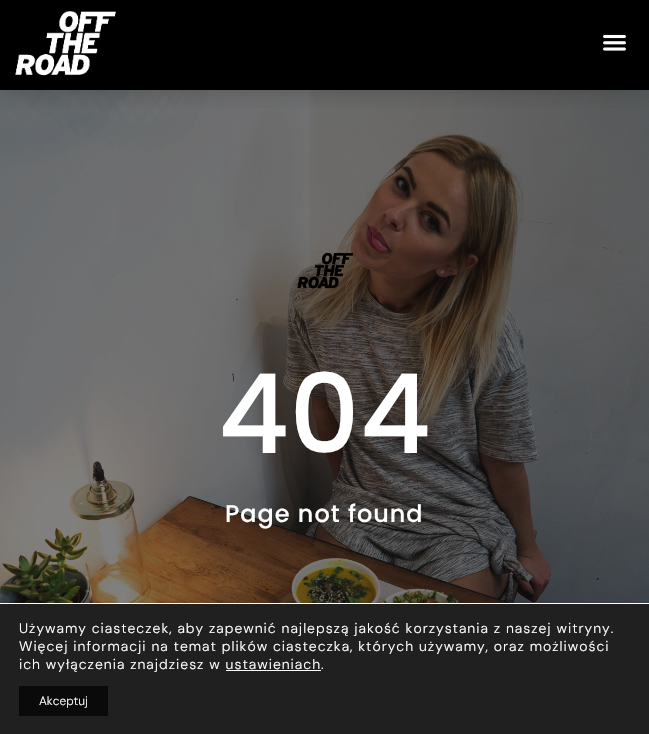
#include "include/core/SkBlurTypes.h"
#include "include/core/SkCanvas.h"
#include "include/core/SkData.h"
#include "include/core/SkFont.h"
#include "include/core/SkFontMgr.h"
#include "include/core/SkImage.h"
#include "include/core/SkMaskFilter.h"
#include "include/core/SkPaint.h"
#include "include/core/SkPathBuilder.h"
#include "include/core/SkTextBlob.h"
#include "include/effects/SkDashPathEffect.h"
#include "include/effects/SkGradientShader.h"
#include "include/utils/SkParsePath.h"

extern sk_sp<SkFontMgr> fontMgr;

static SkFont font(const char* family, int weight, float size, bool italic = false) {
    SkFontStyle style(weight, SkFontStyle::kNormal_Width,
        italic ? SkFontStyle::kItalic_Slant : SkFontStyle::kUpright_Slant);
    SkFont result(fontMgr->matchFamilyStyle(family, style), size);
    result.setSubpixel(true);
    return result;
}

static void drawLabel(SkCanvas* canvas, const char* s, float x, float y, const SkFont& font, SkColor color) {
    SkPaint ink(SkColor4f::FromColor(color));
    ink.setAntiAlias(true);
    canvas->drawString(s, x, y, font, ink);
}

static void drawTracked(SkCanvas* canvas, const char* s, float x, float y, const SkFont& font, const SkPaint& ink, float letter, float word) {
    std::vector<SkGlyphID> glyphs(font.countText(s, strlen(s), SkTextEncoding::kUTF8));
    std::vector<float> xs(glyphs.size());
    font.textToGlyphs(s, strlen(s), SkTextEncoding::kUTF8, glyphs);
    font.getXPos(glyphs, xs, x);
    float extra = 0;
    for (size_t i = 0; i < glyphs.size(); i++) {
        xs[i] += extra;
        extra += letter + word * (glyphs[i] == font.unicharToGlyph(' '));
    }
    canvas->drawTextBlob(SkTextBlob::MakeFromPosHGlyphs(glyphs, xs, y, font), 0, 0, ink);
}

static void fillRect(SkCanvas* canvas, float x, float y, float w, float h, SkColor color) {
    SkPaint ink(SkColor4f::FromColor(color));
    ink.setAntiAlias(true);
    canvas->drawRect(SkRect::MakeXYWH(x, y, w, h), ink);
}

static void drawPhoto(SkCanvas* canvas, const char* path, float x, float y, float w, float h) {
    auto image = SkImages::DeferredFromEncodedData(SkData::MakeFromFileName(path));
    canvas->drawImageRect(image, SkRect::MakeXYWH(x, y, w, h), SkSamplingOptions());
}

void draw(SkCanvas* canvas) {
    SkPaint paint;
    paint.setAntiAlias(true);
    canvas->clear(0xFFFFFFFF);
    fillRect(canvas, 0, 0, 649, 90, 0xFF000000);
    drawPhoto(canvas, "assets/img3.png", 0, 90, 649, 513);
    canvas->save();
    canvas->clipRect(SkRect::MakeXYWH(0, 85, 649, 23));
    paint.setColor(0x4D000000);
    paint.setMaskFilter(SkMaskFilter::MakeBlur(kNormal_SkBlurStyle, 15));
    canvas->drawRect(SkRect::MakeXYWH(0, 0, 649, 85), paint);
    paint.setMaskFilter(nullptr);
    canvas->restore();
    drawPhoto(canvas, "assets/img1.png", 15, 11, 101, 65);
    drawPhoto(canvas, "assets/img2.png", 603, 34, 23, 17);
    drawPhoto(canvas, "assets/img4.png", 297, 252, 57, 37);
    SkFont font1 = font("Poppins", 500, 110);
    drawLabel(canvas, "404", 218, 453, font1, 0xFFFFFFFF);
    SkFont font2 = font("Poppins", 500, 24);
    paint.setColor(0xFFFFFFFF);
    drawTracked(canvas, "Page not found", 225, 522, font2, paint, 1, 0);
    fillRect(canvas, 0, 604, 649, 130, 0xFF202020);
    SkFont font3 = font("DM Sans", 300, 14);
    drawTracked(canvas, "Używamy ciasteczek, aby zapewnić najlepszą jakość korzystania z naszej witryny.", 19, 633, font3, paint, 1, 0);
    drawTracked(canvas, "Więcej informacji na temat plików ciasteczka, których używamy, oraz możliwości", 19, 651, font3, paint, 1, 0);
    drawTracked(canvas, "ich wyłączenia znajdziesz w ustawieniach.", 19, 669, font3, paint, 1, 0);
    fillRect(canvas, 226, 670, 95, 1, 0xFFFFFFFF);
    fillRect(canvas, 19, 686, 89, 30, 0xFF0A0A0A);
    SkFont font4 = font("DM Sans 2", 300, 12);
    drawLabel(canvas, "Akceptuj", 39, 705, font4, 0xFFFFFFFF);
}
